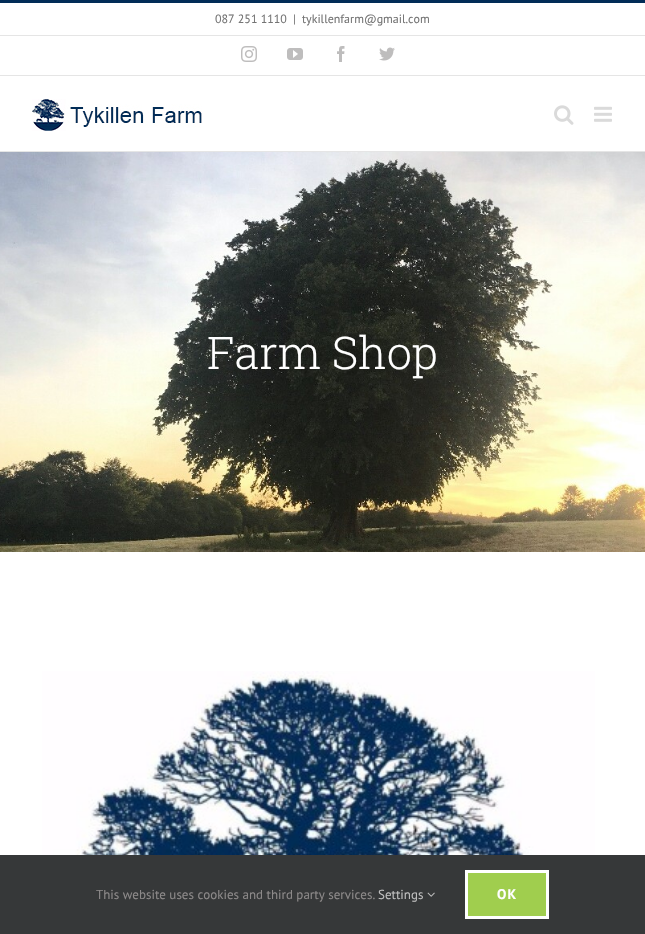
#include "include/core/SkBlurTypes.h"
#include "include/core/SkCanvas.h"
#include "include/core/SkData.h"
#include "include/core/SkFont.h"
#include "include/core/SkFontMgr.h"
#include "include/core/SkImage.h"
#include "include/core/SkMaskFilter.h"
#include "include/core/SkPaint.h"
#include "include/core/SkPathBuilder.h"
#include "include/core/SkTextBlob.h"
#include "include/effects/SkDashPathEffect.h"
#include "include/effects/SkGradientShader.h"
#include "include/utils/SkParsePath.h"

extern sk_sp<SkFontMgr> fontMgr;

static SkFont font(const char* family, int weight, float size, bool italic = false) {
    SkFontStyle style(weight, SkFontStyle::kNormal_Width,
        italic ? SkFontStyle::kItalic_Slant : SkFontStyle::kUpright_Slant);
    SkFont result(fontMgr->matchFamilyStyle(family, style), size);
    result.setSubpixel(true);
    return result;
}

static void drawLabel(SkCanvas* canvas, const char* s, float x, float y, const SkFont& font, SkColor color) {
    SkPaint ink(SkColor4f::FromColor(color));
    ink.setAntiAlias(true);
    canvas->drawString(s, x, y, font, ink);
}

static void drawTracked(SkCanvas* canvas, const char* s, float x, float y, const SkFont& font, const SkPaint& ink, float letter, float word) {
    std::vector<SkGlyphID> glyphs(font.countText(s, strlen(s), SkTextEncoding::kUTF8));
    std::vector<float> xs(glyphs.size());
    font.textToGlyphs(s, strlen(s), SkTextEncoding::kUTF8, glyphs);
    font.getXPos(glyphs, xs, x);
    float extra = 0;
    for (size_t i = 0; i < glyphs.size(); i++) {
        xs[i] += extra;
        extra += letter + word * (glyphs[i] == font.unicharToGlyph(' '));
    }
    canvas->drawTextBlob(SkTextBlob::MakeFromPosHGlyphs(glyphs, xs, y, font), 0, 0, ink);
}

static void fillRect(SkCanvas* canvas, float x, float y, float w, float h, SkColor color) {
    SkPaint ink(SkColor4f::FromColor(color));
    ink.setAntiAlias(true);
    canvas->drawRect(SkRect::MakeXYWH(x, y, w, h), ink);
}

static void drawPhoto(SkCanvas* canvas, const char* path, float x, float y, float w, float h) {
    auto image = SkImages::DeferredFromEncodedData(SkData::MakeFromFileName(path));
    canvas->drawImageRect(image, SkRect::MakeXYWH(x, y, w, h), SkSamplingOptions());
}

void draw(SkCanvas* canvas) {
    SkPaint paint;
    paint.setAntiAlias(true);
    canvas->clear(0xFFFFFFFF);
    fillRect(canvas, 0, 0, 645, 3, 0xFF012C57);
    fillRect(canvas, 0, 75, 645, 1, 0xFFE5E5E5);
    fillRect(canvas, 0, 35, 645, 1, 0xFFE5E5E5);
    SkFont font1 = font("PT Sans", 400, 12);
    drawLabel(canvas, "087 251 1110", 215, 23, font1, 0xFF747474);
    drawLabel(canvas, "|", 293, 23, font1, 0xFF747474);
    drawLabel(canvas, "tykillenfarm@gmail.com", 302, 23, font1, 0xFF747474);
    drawPhoto(canvas, "assets/img1.png", 241, 46, 16, 16);
    drawPhoto(canvas, "assets/img2.png", 287, 48, 16, 12);
    drawPhoto(canvas, "assets/img3.png", 337, 46, 8, 16);
    drawPhoto(canvas, "assets/img4.png", 379, 47, 16, 14);
    fillRect(canvas, 0, 151, 645, 1, 0xFFE5E5E5);
    drawPhoto(canvas, "assets/img5.png", 32, 99, 170, 32);
    drawPhoto(canvas, "assets/img6.png", 554, 105, 20, 20);
    drawPhoto(canvas, "assets/img7.png", 594, 106, 18, 16);
    drawPhoto(canvas, "assets/img8.png", 0, 152, 645, 400);
    SkFont font2 = font("Roboto Slab", 300, 45);
    drawLabel(canvas, "Farm Shop", 207, 369, font2, 0xFFFFFFFF);
    drawPhoto(canvas, "assets/img9.png", 42, 671, 553, 184);
    fillRect(canvas, 0, 855, 645, 79, 0xFF363839);
    SkFont font3 = font("PT Sans", 400, 13);
    drawLabel(canvas, "This website uses cookies and third party services.", 96, 899, font3, 0xFF8C8989);
    drawLabel(canvas, "Settings", 378, 899, font3, 0xFFBFBFBF);
    drawPhoto(canvas, "assets/img10.png", 427, 892, 8, 5);
    paint.setColor(0xFFA0CE4E);
    canvas->drawRect(SkRect::MakeXYWH(466.5f, 871.5f, 81, 46), paint);
    paint.setStroke(true);
    paint.setStrokeWidth(3);
    paint.setColor(0xFFFFFFFF);
    canvas->drawRect(SkRect::MakeXYWH(466.5f, 871.5f, 81, 46), paint);
    SkFont font4 = font("PT Sans", 700, 14);
    paint.setStroke(false);
    drawTracked(canvas, "OK", 497, 899, font4, paint, 1, 0);
}
